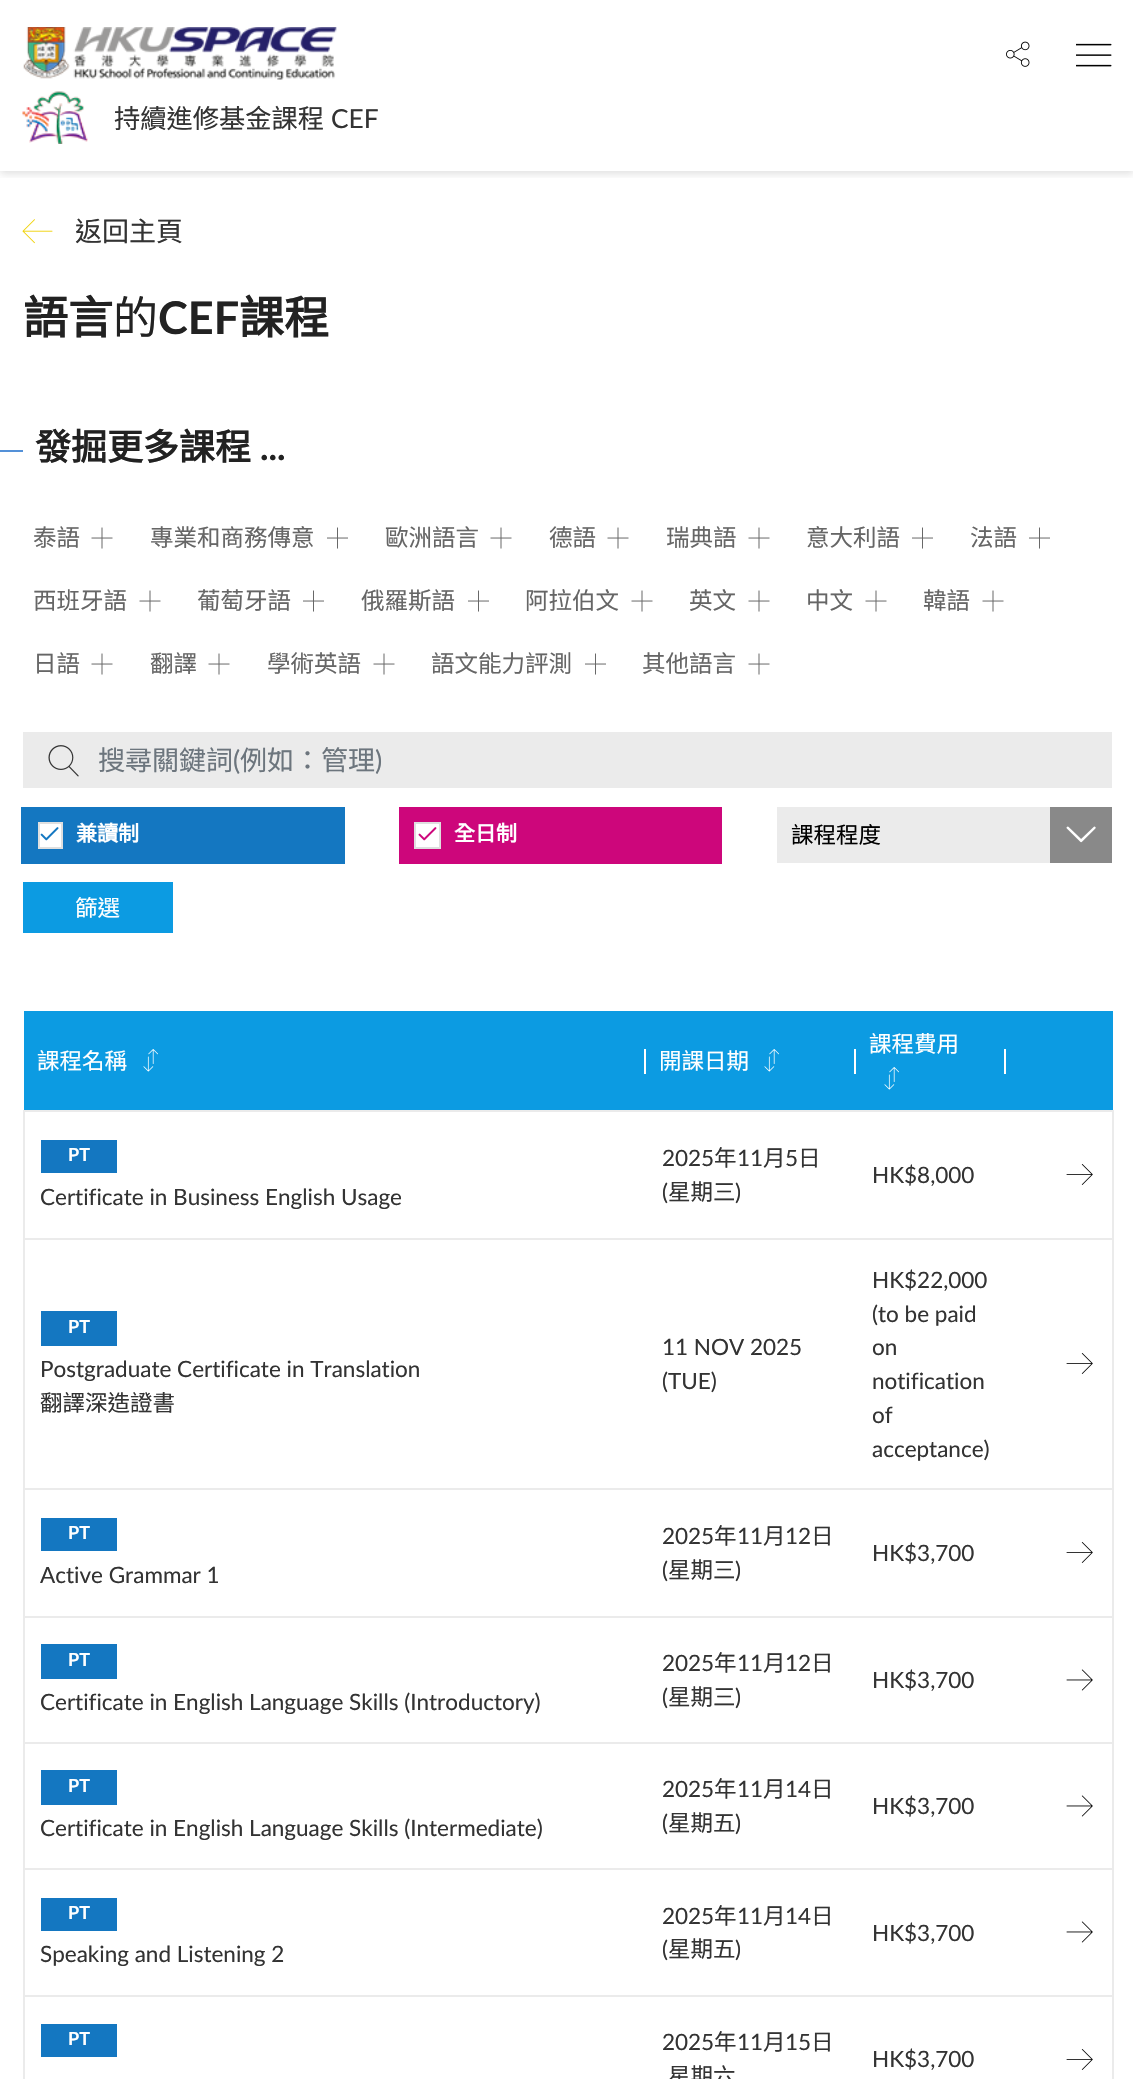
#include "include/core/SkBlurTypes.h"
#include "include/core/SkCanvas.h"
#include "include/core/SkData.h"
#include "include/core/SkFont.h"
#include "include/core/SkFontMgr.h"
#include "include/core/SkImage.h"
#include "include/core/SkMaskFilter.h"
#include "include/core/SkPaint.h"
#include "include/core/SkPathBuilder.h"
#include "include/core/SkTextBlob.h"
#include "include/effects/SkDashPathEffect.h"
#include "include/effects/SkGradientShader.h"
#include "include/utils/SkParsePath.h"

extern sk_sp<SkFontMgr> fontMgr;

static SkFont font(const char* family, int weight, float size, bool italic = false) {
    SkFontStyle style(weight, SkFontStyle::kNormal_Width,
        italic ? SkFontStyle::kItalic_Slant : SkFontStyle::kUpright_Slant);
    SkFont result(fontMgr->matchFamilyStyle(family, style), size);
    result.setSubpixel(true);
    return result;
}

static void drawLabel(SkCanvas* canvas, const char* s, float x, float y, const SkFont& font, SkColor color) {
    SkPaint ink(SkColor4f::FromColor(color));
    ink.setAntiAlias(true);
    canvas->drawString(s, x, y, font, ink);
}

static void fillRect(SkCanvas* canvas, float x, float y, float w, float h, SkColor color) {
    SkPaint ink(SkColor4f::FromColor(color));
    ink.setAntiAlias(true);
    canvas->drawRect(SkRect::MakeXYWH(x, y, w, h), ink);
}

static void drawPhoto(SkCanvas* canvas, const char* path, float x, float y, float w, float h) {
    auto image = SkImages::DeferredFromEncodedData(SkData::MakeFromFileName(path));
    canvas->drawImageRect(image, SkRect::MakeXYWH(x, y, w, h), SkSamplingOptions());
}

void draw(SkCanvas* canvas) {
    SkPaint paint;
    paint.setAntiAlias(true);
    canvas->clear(0xFFFFFFFF);
    canvas->save();
    canvas->clipRect(SkRect::MakeXYWH(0, 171, 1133, 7));
    paint.setColor(0x26323232);
    paint.setMaskFilter(SkMaskFilter::MakeBlur(kNormal_SkBlurStyle, 4));
    canvas->drawRect(SkRect::MakeXYWH(0, 3, 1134, 171), paint);
    paint.setMaskFilter(nullptr);
    canvas->restore();
    drawPhoto(canvas, "assets/img1.png", 1006, 41, 24, 26);
    drawPhoto(canvas, "assets/img2.png", 1076, 43, 36, 24);
    drawPhoto(canvas, "assets/img3.png", 23, 27, 314, 53);
    drawPhoto(canvas, "assets/img4.png", 22, 91, 66, 53);
    SkFont font1 = font("Noto Sans CJK HK", 400, 26.25f);
    drawLabel(canvas, "持續進修基金課程", 114, 128, font1, 0xFF333333);
    SkFont font2 = font("Lato", 400, 26.25f);
    drawLabel(canvas, "CEF", 331, 128, font2, 0xFF333333);
    drawPhoto(canvas, "assets/img5.png", 22, 219, 31, 25);
    SkFont font3 = font("Noto Sans CJK HK", 400, 27);
    drawLabel(canvas, "返回主頁", 75, 241, font3, 0xFF333333);
    SkFont font4 = font("Noto Sans CJK HK", 700, 45);
    drawLabel(canvas, "語言", 23, 334, font4, 0xFF222222);
    SkFont font5 = font("Noto Sans CJK HK", 400, 45);
    drawLabel(canvas, "的", 113, 334, font5, 0xFF222222);
    SkFont font6 = font("Lato", 700, 45);
    drawLabel(canvas, "CEF", 158, 334, font6, 0xFF222222);
    drawLabel(canvas, "課程", 239, 334, font4, 0xFF222222);
    fillRect(canvas, 0, 450, 23, 2, 0xFF5491D8);
    SkFont font7 = font("Noto Sans CJK HK", 700, 36);
    drawLabel(canvas, "發掘更多課程", 35, 460, font7, 0xFF222222);
    SkFont font8 = font("Lato", 700, 36);
    drawLabel(canvas, "...", 260, 460, font8, 0xFF222222);
    SkFont font9 = font("Noto Sans CJK HK", 400, 23.5f);
    drawLabel(canvas, "泰語", 33, 546, font9, 0xFF666666);
    drawPhoto(canvas, "assets/img6.png", 91, 527, 22, 22);
    drawLabel(canvas, "專業和商務傳意", 150, 546, font9, 0xFF666666);
    drawPhoto(canvas, "assets/img7.png", 327, 527, 21, 22);
    drawLabel(canvas, "歐洲語言", 385, 546, font9, 0xFF666666);
    drawPhoto(canvas, "assets/img6.png", 490, 527, 22, 22);
    drawLabel(canvas, "德語", 549, 546, font9, 0xFF666666);
    drawPhoto(canvas, "assets/img6.png", 607, 527, 22, 22);
    drawLabel(canvas, "瑞典語", 666, 546, font9, 0xFF666666);
    drawPhoto(canvas, "assets/img6.png", 748, 527, 22, 22);
    drawLabel(canvas, "意大利語", 806, 546, font9, 0xFF666666);
    drawPhoto(canvas, "assets/img7.png", 912, 527, 21, 22);
    drawLabel(canvas, "法語", 970, 546, font9, 0xFF666666);
    drawPhoto(canvas, "assets/img7.png", 1029, 527, 21, 22);
    drawLabel(canvas, "西班牙語", 33, 609, font9, 0xFF666666);
    drawPhoto(canvas, "assets/img6.png", 139, 590, 22, 22);
    drawLabel(canvas, "葡萄牙語", 197, 609, font9, 0xFF666666);
    drawPhoto(canvas, "assets/img7.png", 303, 590, 21, 22);
    drawLabel(canvas, "俄羅斯語", 361, 609, font9, 0xFF666666);
    drawPhoto(canvas, "assets/img7.png", 468, 590, 21, 22);
    drawLabel(canvas, "阿拉伯文", 525, 609, font9, 0xFF666666);
    drawPhoto(canvas, "assets/img6.png", 631, 590, 22, 22);
    drawLabel(canvas, "英文", 689, 609, font9, 0xFF666666);
    drawPhoto(canvas, "assets/img6.png", 748, 590, 22, 22);
    drawLabel(canvas, "中文", 806, 609, font9, 0xFF666666);
    drawPhoto(canvas, "assets/img6.png", 865, 590, 22, 22);
    drawLabel(canvas, "韓語", 923, 609, font9, 0xFF666666);
    drawPhoto(canvas, "assets/img6.png", 982, 590, 22, 22);
    drawLabel(canvas, "日語", 33, 672, font9, 0xFF666666);
    drawPhoto(canvas, "assets/img6.png", 91, 653, 22, 22);
    drawLabel(canvas, "翻譯", 150, 672, font9, 0xFF666666);
    drawPhoto(canvas, "assets/img6.png", 208, 653, 22, 22);
    drawLabel(canvas, "學術英語", 267, 672, font9, 0xFF666666);
    drawPhoto(canvas, "assets/img6.png", 373, 653, 22, 22);
    drawLabel(canvas, "語文能力評測", 431, 672, font9, 0xFF666666);
    drawPhoto(canvas, "assets/img7.png", 585, 653, 21, 22);
    drawLabel(canvas, "其他語言", 642, 672, font9, 0xFF666666);
    drawPhoto(canvas, "assets/img6.png", 748, 653, 22, 22);
    fillRect(canvas, 23, 732, 1089, 56, 0xFFEBEBEB);
    drawPhoto(canvas, "assets/img8.png", 48, 745, 31, 32);
    drawLabel(canvas, "搜尋關鍵詞", 98, 770, font3, 0xFF6C757D);
    SkFont font10 = font("Lato", 400, 27);
    drawLabel(canvas, "(", 233, 770, font10, 0xFF6C757D);
    drawLabel(canvas, "例如：管理", 240, 770, font3, 0xFF6C757D);
    drawLabel(canvas, ")", 375, 770, font10, 0xFF6C757D);
    fillRect(canvas, 21, 807, 324, 57, 0xFF1477C1);
    paint.setColor(0xFFFFFFFF);
    canvas->drawRect(SkRect::MakeXYWH(39, 823, 23, 25), paint);
    paint.setStroke(true);
    paint.setStrokeWidth(2);
    paint.setColor(0xFFDFDFDF);
    canvas->drawRect(SkRect::MakeXYWH(39, 823, 23, 25), paint);
    SkFont font11 = font("Noto Sans CJK HK", 700, 21);
    drawLabel(canvas, "兼讀制", 76, 841, font11, 0xFFFFFFFF);
    drawPhoto(canvas, "assets/img9.png", 40, 827, 19, 14);
    fillRect(canvas, 399, 807, 323, 57, 0xFFCD067B);
    paint.setStroke(false);
    paint.setColor(0xFFFFFFFF);
    canvas->drawRect(SkRect::MakeXYWH(415, 823, 25, 25), paint);
    paint.setStroke(true);
    paint.setColor(0xFFDFDFDF);
    canvas->drawRect(SkRect::MakeXYWH(415, 823, 25, 25), paint);
    drawLabel(canvas, "全日制", 454, 841, font11, 0xFFFFFFFF);
    drawPhoto(canvas, "assets/img10.png", 418, 827, 19, 14);
    fillRect(canvas, 777, 807, 273, 56, 0xFFEBEBEB);
    SkFont font12 = font("Noto Sans CJK HK", 400, 22.5f);
    drawLabel(canvas, "課程程度", 791, 843, font12, 0xFF000000);
    fillRect(canvas, 1050, 807, 62, 56, 0xFF898989);
    drawPhoto(canvas, "assets/img11.png", 1066, 826, 30, 17);
    fillRect(canvas, 23, 882, 150, 51, 0xFF0C9BE2);
    drawLabel(canvas, "篩選", 75, 916, font12, 0xFFFFFFFF);
    fillRect(canvas, 24, 1011, 1089, 99, 0xFF0C9BE2);
    drawLabel(canvas, "課程費用", 869, 1052, font12, 0xFFFFFFFF);
    fillRect(canvas, 1004, 1049, 2, 25, 0xFFFFFFFF);
    drawPhoto(canvas, "assets/img12.png", 884, 1067, 15, 23);
    drawLabel(canvas, "課程名稱", 37, 1069, font12, 0xFFFFFFFF);
    drawPhoto(canvas, "assets/img12.png", 143, 1049, 15, 23);
    fillRect(canvas, 644, 1049, 2, 25, 0xFFFFFFFF);
    drawLabel(canvas, "開課日期", 659, 1069, font12, 0xFFFFFFFF);
    drawPhoto(canvas, "assets/img12.png", 764, 1049, 15, 23);
    fillRect(canvas, 854, 1049, 2, 25, 0xFFFFFFFF);
    fillRect(canvas, 23, 1110, 1090, 2, 0xFFEBEBEB);
    fillRect(canvas, 23, 1238, 1090, 2, 0xFFEBEBEB);
    fillRect(canvas, 23, 1488, 1090, 2, 0xFFEBEBEB);
    fillRect(canvas, 23, 1616, 1090, 2, 0xFFEBEBEB);
    fillRect(canvas, 23, 1742, 1090, 2, 0xFFEBEBEB);
    fillRect(canvas, 23, 1868, 1090, 2, 0xFFEBEBEB);
    fillRect(canvas, 23, 1995, 1090, 2, 0xFFEBEBEB);
    fillRect(canvas, 1112, 1995, 2, 84, 0xFFEBEBEB);
    fillRect(canvas, 1112, 1868, 2, 129, 0xFFEBEBEB);
    fillRect(canvas, 1112, 1742, 2, 127, 0xFFEBEBEB);
    fillRect(canvas, 1112, 1616, 2, 127, 0xFFEBEBEB);
    fillRect(canvas, 1112, 1488, 2, 129, 0xFFEBEBEB);
    fillRect(canvas, 1112, 1238, 2, 252, 0xFFEBEBEB);
    fillRect(canvas, 1112, 1110, 2, 129, 0xFFEBEBEB);
    fillRect(canvas, 23, 1995, 2, 84, 0xFFEBEBEB);
    fillRect(canvas, 23, 1868, 2, 129, 0xFFEBEBEB);
    fillRect(canvas, 23, 1742, 2, 127, 0xFFEBEBEB);
    fillRect(canvas, 23, 1616, 2, 127, 0xFFEBEBEB);
    fillRect(canvas, 23, 1488, 2, 129, 0xFFEBEBEB);
    fillRect(canvas, 23, 1238, 2, 252, 0xFFEBEBEB);
    fillRect(canvas, 23, 1110, 2, 129, 0xFFEBEBEB);
    fillRect(canvas, 41, 1140, 76, 33, 0xFF1477C1);
    SkFont font13 = font("Lato", 700, 18);
    drawLabel(canvas, "PT", 68, 1161, font13, 0xFFFFFFFF);
    SkFont font14 = font("Lato", 400, 22.5f);
    drawLabel(canvas, "Certificate in Business English Usage", 40, 1205, font14, 0xFF333333);
    drawLabel(canvas, "2025", 662, 1166, font14, 0xFF333333);
    drawLabel(canvas, "年", 714, 1166, font12, 0xFF333333);
    drawLabel(canvas, "11", 737, 1166, font14, 0xFF333333);
    drawLabel(canvas, "月", 763, 1166, font12, 0xFF333333);
    drawLabel(canvas, "5", 785, 1166, font14, 0xFF333333);
    drawLabel(canvas, "日", 798, 1166, font12, 0xFF333333);
    drawLabel(canvas, "(", 662, 1200, font14, 0xFF333333);
    drawLabel(canvas, "星期三", 668, 1200, font12, 0xFF333333);
    drawLabel(canvas, ")", 735, 1200, font14, 0xFF333333);
    drawLabel(canvas, "HK$8,000", 872, 1183, font14, 0xFF333333);
    drawPhoto(canvas, "assets/img13.png", 1066, 1164, 27, 21);
    fillRect(canvas, 41, 1311, 76, 35, 0xFF1477C1);
    drawLabel(canvas, "PT", 68, 1333, font13, 0xFFFFFFFF);
    drawLabel(canvas, "Postgraduate Certificate in Translation", 40, 1377, font14, 0xFF333333);
    drawLabel(canvas, "翻譯深造證書", 40, 1411, font12, 0xFF333333);
    drawLabel(canvas, "11 NOV 2025", 662, 1355, font14, 0xFF333333);
    drawLabel(canvas, "(TUE)", 662, 1389, font14, 0xFF333333);
    drawLabel(canvas, "HK$22,000", 872, 1288, font14, 0xFF333333);
    drawLabel(canvas, "(to be paid", 872, 1322, font14, 0xFF333333);
    drawLabel(canvas, "on", 872, 1355, font14, 0xFF333333);
    drawLabel(canvas, "notification", 872, 1389, font14, 0xFF333333);
    drawLabel(canvas, "of", 872, 1423, font14, 0xFF333333);
    drawLabel(canvas, "acceptance)", 872, 1457, font14, 0xFF333333);
    drawPhoto(canvas, "assets/img13.png", 1066, 1353, 27, 21);
    fillRect(canvas, 41, 1518, 76, 33, 0xFF1477C1);
    drawLabel(canvas, "PT", 68, 1539, font13, 0xFFFFFFFF);
    drawLabel(canvas, "Active Grammar 1", 40, 1583, font14, 0xFF333333);
    drawLabel(canvas, "2025", 662, 1544, font14, 0xFF333333);
    drawLabel(canvas, "年", 714, 1544, font12, 0xFF333333);
    drawLabel(canvas, "11", 737, 1544, font14, 0xFF333333);
    drawLabel(canvas, "月", 763, 1544, font12, 0xFF333333);
    drawLabel(canvas, "12", 785, 1544, font14, 0xFF333333);
    drawLabel(canvas, "日", 811, 1544, font12, 0xFF333333);
    drawLabel(canvas, "(", 662, 1578, font14, 0xFF333333);
    drawLabel(canvas, "星期三", 668, 1578, font12, 0xFF333333);
    drawLabel(canvas, ")", 735, 1578, font14, 0xFF333333);
    drawLabel(canvas, "HK$3,700", 872, 1561, font14, 0xFF333333);
    drawPhoto(canvas, "assets/img13.png", 1066, 1542, 27, 21);
    fillRect(canvas, 41, 1644, 76, 35, 0xFF1477C1);
    drawLabel(canvas, "PT", 68, 1666, font13, 0xFFFFFFFF);
    drawLabel(canvas, "Certificate in English Language Skills (Introductory)", 40, 1710, font14, 0xFF333333);
    drawLabel(canvas, "2025", 662, 1671, font14, 0xFF333333);
    drawLabel(canvas, "年", 714, 1671, font12, 0xFF333333);
    drawLabel(canvas, "11", 737, 1671, font14, 0xFF333333);
    drawLabel(canvas, "月", 763, 1671, font12, 0xFF333333);
    drawLabel(canvas, "12", 785, 1671, font14, 0xFF333333);
    drawLabel(canvas, "日", 811, 1671, font12, 0xFF333333);
    drawLabel(canvas, "(", 662, 1705, font14, 0xFF333333);
    drawLabel(canvas, "星期三", 668, 1705, font12, 0xFF333333);
    drawLabel(canvas, ")", 735, 1705, font14, 0xFF333333);
    drawLabel(canvas, "HK$3,700", 872, 1688, font14, 0xFF333333);
    drawPhoto(canvas, "assets/img14.png", 1066, 1669, 27, 22);
    fillRect(canvas, 41, 1770, 76, 35, 0xFF1477C1);
    drawLabel(canvas, "PT", 68, 1792, font13, 0xFFFFFFFF);
    drawLabel(canvas, "Certificate in English Language Skills (Intermediate)", 40, 1836, font14, 0xFF333333);
    drawLabel(canvas, "2025", 662, 1797, font14, 0xFF333333);
    drawLabel(canvas, "年", 714, 1797, font12, 0xFF333333);
    drawLabel(canvas, "11", 737, 1797, font14, 0xFF333333);
    drawLabel(canvas, "月", 763, 1797, font12, 0xFF333333);
    drawLabel(canvas, "14", 785, 1797, font14, 0xFF333333);
    drawLabel(canvas, "日", 811, 1797, font12, 0xFF333333);
    drawLabel(canvas, "(", 662, 1831, font14, 0xFF333333);
    drawLabel(canvas, "星期五", 668, 1831, font12, 0xFF333333);
    drawLabel(canvas, ")", 735, 1831, font14, 0xFF333333);
    drawLabel(canvas, "HK$3,700", 872, 1814, font14, 0xFF333333);
    drawPhoto(canvas, "assets/img14.png", 1066, 1795, 27, 22);
    fillRect(canvas, 41, 1898, 76, 33, 0xFF1477C1);
    drawLabel(canvas, "PT", 68, 1919, font13, 0xFFFFFFFF);
    drawLabel(canvas, "Speaking and Listening 2", 40, 1962, font14, 0xFF333333);
    drawLabel(canvas, "2025", 662, 1924, font14, 0xFF333333);
    drawLabel(canvas, "年", 714, 1924, font12, 0xFF333333);
    drawLabel(canvas, "11", 737, 1924, font14, 0xFF333333);
    drawLabel(canvas, "月", 763, 1924, font12, 0xFF333333);
    drawLabel(canvas, "14", 785, 1924, font14, 0xFF333333);
    drawLabel(canvas, "日", 811, 1924, font12, 0xFF333333);
    drawLabel(canvas, "(", 662, 1957, font14, 0xFF333333);
    drawLabel(canvas, "星期五", 668, 1957, font12, 0xFF333333);
    drawLabel(canvas, ")", 735, 1957, font14, 0xFF333333);
    drawLabel(canvas, "HK$3,700", 872, 1941, font14, 0xFF333333);
    drawPhoto(canvas, "assets/img14.png", 1066, 1921, 27, 22);
    fillRect(canvas, 41, 2024, 76, 33, 0xFF1477C1);
    drawLabel(canvas, "PT", 68, 2045, font13, 0xFFFFFFFF);
    drawLabel(canvas, "2025", 662, 2050, font14, 0xFF333333);
    drawLabel(canvas, "年", 714, 2050, font12, 0xFF333333);
    drawLabel(canvas, "11", 737, 2050, font14, 0xFF333333);
    drawLabel(canvas, "月", 763, 2050, font12, 0xFF333333);
    drawLabel(canvas, "15", 785, 2050, font14, 0xFF333333);
    drawLabel(canvas, "日", 811, 2050, font12, 0xFF333333);
    drawLabel(canvas, "星期六", 668, 2084, font12, 0xFF333333);
    drawLabel(canvas, "HK$3,700", 872, 2067, font14, 0xFF333333);
    drawPhoto(canvas, "assets/img13.png", 1066, 2049, 27, 21);
}
